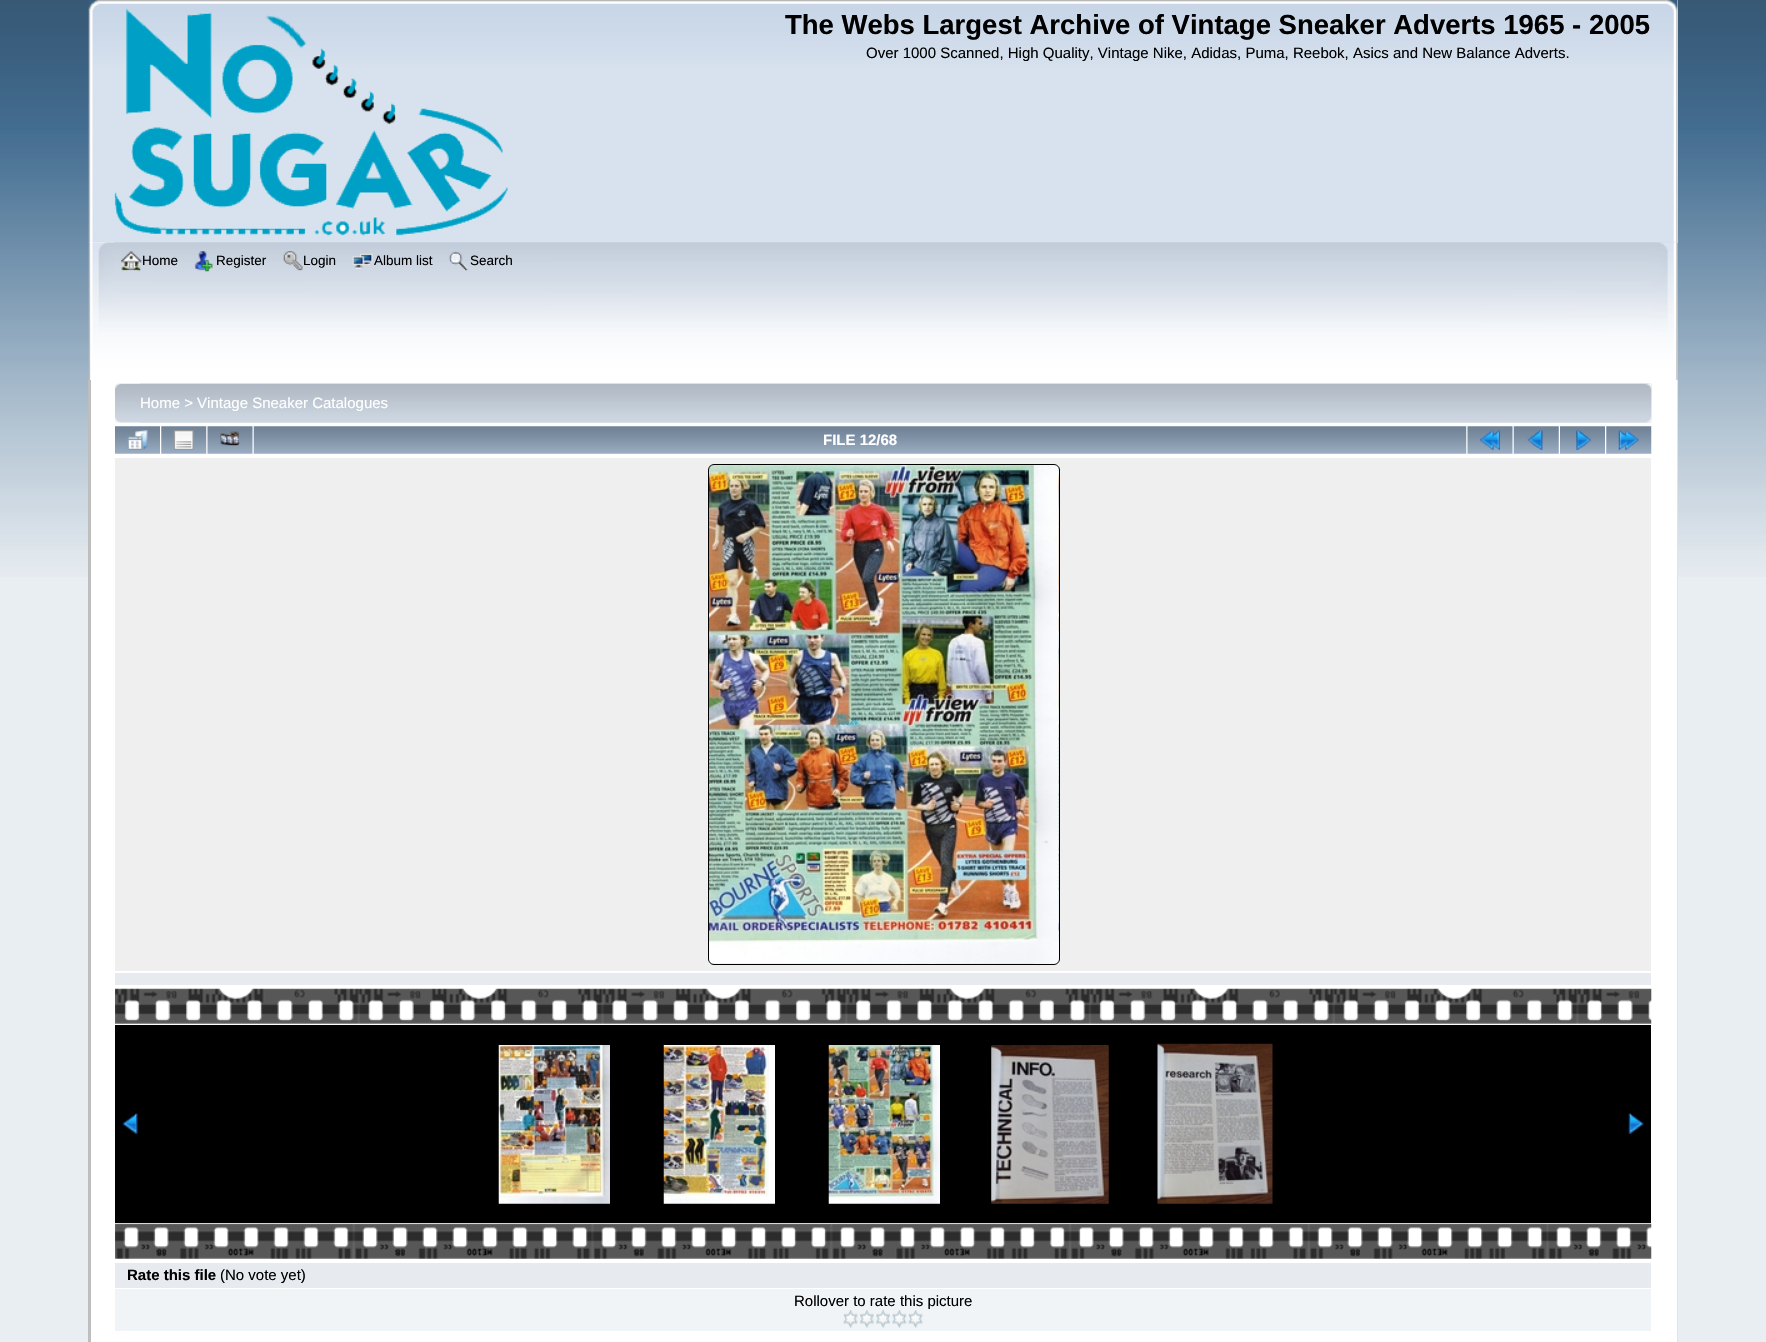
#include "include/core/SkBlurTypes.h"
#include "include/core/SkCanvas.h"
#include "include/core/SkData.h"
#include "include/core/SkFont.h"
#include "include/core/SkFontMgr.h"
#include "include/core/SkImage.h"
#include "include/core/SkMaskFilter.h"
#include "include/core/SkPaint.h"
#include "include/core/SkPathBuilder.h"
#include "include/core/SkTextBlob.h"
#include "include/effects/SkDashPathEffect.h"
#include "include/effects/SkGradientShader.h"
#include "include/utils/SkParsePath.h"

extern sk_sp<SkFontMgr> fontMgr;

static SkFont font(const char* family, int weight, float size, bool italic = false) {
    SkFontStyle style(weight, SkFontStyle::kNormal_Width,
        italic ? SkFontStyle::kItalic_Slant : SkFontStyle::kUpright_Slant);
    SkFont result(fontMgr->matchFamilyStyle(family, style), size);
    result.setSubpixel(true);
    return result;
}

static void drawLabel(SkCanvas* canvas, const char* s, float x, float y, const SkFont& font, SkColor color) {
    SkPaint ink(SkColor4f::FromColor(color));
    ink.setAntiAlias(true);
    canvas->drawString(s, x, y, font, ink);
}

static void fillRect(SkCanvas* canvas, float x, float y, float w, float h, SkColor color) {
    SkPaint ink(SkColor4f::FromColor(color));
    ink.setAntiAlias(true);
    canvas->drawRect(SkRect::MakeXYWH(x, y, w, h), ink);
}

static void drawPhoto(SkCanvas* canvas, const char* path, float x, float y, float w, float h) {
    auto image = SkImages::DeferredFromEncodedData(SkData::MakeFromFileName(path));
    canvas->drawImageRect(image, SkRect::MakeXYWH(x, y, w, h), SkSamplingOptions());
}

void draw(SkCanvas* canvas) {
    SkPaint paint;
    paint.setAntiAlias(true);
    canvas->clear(0xFFE9EEF2);
    drawPhoto(canvas, "assets/img1.png", 0, 0, 1766, 577);
    fillRect(canvas, 89, 0, 1589, 243, 0xFFFEFEFE);
    drawPhoto(canvas, "assets/img2.png", 88, 0, 1590, 243);
    drawPhoto(canvas, "assets/img3.png", 114, 0, 1564, 243);
    drawPhoto(canvas, "assets/img4.png", 113, 8, 395, 228);
    SkFont font1 = font("Liberation Sans", 700, 27.5f);
    drawLabel(canvas, "The Webs Largest Archive of Vintage Sneaker Adverts 1965 - 2005", 785, 34, font1, 0xFF000000);
    SkFont font2 = font("Liberation Sans", 400, 15);
    drawLabel(canvas, "Over 1000 Scanned, High Quality, Vintage Nike, Adidas, Puma, Reebok, Asics and New Balance Adverts.", 866, 58, font2, 0xFF000000);
    drawPhoto(canvas, "assets/img5.png", 88, 242, 1590, 138);
    drawPhoto(canvas, "assets/img6.png", 114, 242, 1564, 138);
    drawPhoto(canvas, "assets/img7.png", 121, 251, 21, 21);
    SkFont font3 = font("Liberation Sans", 400, 13.5f);
    drawLabel(canvas, "Home", 142, 265, font3, 0xFF000000);
    drawPhoto(canvas, "assets/img8.png", 194, 251, 19, 21);
    drawLabel(canvas, "Register", 216, 265, font3, 0xFF000000);
    drawPhoto(canvas, "assets/img9.png", 283, 251, 20, 20);
    drawLabel(canvas, "Login", 303, 265, font3, 0xFF000000);
    drawPhoto(canvas, "assets/img10.png", 352, 253, 21, 16);
    drawLabel(canvas, "Album list", 374, 265, font3, 0xFF000000);
    drawPhoto(canvas, "assets/img11.png", 448, 251, 20, 20);
    drawLabel(canvas, "Search", 470, 265, font3, 0xFF000000);
    fillRect(canvas, 91, 380, 1586, 962, 0xFFFFFFFF);
    fillRect(canvas, 88, 380, 3, 962, 0xFFBEBEBE);
    fillRect(canvas, 1677, 380, 1, 962, 0xFFE3E3E3);
    drawPhoto(canvas, "assets/img12.png", 115, 383, 1537, 40);
    drawPhoto(canvas, "assets/img13.png", 140, 383, 1512, 40);
    drawLabel(canvas, "Home > Vintage Sneaker Catalogues", 140, 408, font2, 0xFFFFFFFF);
    drawPhoto(canvas, "assets/img14.png", 115, 426, 45, 28);
    drawPhoto(canvas, "assets/img15.png", 127, 430, 21, 20);
    drawPhoto(canvas, "assets/img16.png", 161, 426, 46, 28);
    drawPhoto(canvas, "assets/img17.png", 173, 430, 21, 20);
    drawPhoto(canvas, "assets/img18.png", 207, 426, 46, 28);
    drawPhoto(canvas, "assets/img19.png", 220, 431, 20, 15);
    drawPhoto(canvas, "assets/img20.png", 253, 426, 1214, 28);
    SkFont font4 = font("Liberation Sans", 700, 15);
    drawLabel(canvas, "FILE 12/68", 823, 445, font4, 0xFFFFFFFF);
    drawPhoto(canvas, "assets/img18.png", 1467, 426, 46, 28);
    drawPhoto(canvas, "assets/img21.png", 1480, 430, 20, 20);
    drawPhoto(canvas, "assets/img22.png", 1513, 426, 46, 28);
    drawPhoto(canvas, "assets/img23.png", 1527, 430, 16, 20);
    drawPhoto(canvas, "assets/img14.png", 1560, 426, 45, 28);
    drawPhoto(canvas, "assets/img24.png", 1576, 430, 16, 20);
    drawPhoto(canvas, "assets/img16.png", 1606, 426, 46, 28);
    drawPhoto(canvas, "assets/img25.png", 1618, 430, 21, 20);
    fillRect(canvas, 115, 458, 1536, 513, 0xFFEFEFEF);
    drawPhoto(canvas, "assets/img26.png", 707, 464, 353, 501);
    paint.setStroke(true);
    paint.setStrokeWidth(1);
    paint.setColor(0xFF000000);
    canvas->drawRoundRect(SkRect::MakeXYWH(708.5f, 464.5f, 351, 500), 5.5f, 5.5f, paint);
    fillRect(canvas, 115, 973, 1536, 12, 0xFFE7EAEF);
    drawPhoto(canvas, "assets/img27.png", 115, 988, 1537, 36);
    fillRect(canvas, 115, 1025, 1536, 198, 0xFF000000);
    drawPhoto(canvas, "assets/img28.png", 122, 1113, 16, 21);
    drawPhoto(canvas, "assets/img29.png", 498, 1045, 112, 159);
    drawPhoto(canvas, "assets/img30.png", 663, 1045, 112, 159);
    drawPhoto(canvas, "assets/img31.png", 828, 1045, 112, 159);
    drawPhoto(canvas, "assets/img32.png", 991, 1045, 118, 159);
    drawPhoto(canvas, "assets/img33.png", 1157, 1043, 116, 161);
    drawPhoto(canvas, "assets/img34.png", 1628, 1113, 16, 21);
    drawPhoto(canvas, "assets/img35.png", 115, 1223, 1537, 36);
    fillRect(canvas, 115, 1263, 1536, 25, 0xFFE7EAEF);
    drawLabel(canvas, "Rate this file", 127, 1280, font4, 0xFF000000);
    drawLabel(canvas, "(No vote yet)", 220, 1280, font2, 0xFF000000);
    fillRect(canvas, 115, 1289, 1536, 42, 0xFFF0F4F7);
    drawLabel(canvas, "Rollover to rate this picture", 794, 1306, font2, 0xFF000000);
    drawPhoto(canvas, "assets/img36.png", 842, 1310, 17, 18);
    drawPhoto(canvas, "assets/img37.png", 859, 1310, 16, 18);
    drawPhoto(canvas, "assets/img38.png", 875, 1310, 16, 18);
    drawPhoto(canvas, "assets/img39.png", 891, 1310, 16, 18);
    drawPhoto(canvas, "assets/img36.png", 907, 1310, 17, 18);
}
